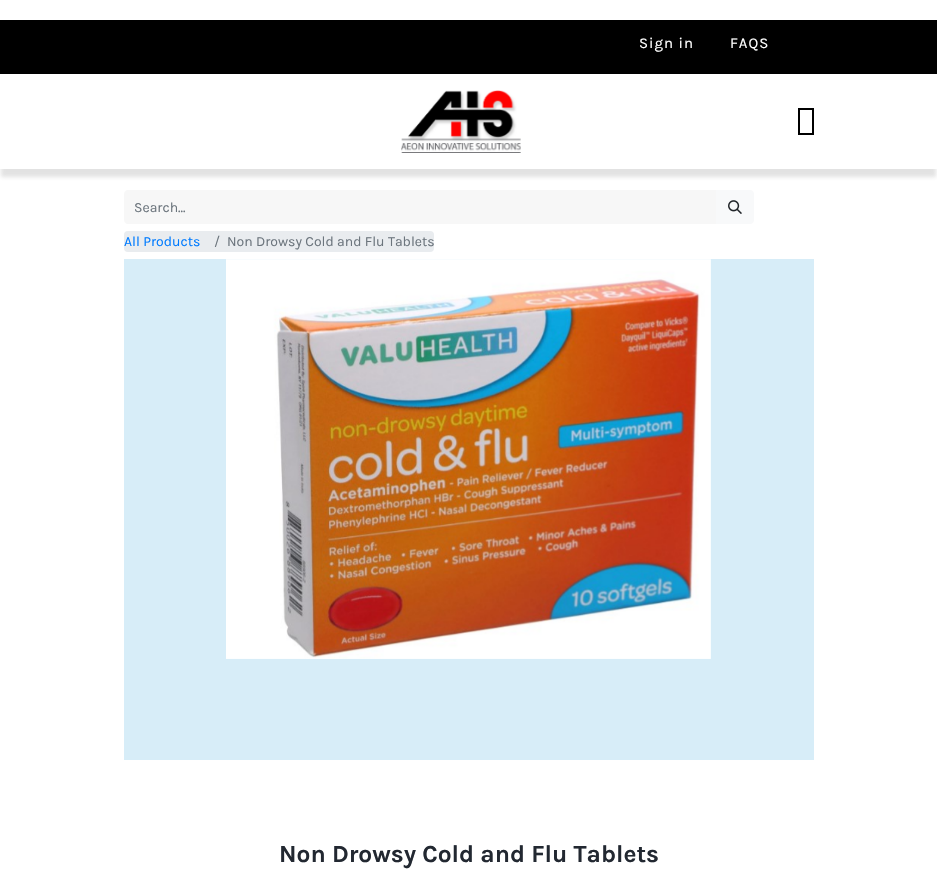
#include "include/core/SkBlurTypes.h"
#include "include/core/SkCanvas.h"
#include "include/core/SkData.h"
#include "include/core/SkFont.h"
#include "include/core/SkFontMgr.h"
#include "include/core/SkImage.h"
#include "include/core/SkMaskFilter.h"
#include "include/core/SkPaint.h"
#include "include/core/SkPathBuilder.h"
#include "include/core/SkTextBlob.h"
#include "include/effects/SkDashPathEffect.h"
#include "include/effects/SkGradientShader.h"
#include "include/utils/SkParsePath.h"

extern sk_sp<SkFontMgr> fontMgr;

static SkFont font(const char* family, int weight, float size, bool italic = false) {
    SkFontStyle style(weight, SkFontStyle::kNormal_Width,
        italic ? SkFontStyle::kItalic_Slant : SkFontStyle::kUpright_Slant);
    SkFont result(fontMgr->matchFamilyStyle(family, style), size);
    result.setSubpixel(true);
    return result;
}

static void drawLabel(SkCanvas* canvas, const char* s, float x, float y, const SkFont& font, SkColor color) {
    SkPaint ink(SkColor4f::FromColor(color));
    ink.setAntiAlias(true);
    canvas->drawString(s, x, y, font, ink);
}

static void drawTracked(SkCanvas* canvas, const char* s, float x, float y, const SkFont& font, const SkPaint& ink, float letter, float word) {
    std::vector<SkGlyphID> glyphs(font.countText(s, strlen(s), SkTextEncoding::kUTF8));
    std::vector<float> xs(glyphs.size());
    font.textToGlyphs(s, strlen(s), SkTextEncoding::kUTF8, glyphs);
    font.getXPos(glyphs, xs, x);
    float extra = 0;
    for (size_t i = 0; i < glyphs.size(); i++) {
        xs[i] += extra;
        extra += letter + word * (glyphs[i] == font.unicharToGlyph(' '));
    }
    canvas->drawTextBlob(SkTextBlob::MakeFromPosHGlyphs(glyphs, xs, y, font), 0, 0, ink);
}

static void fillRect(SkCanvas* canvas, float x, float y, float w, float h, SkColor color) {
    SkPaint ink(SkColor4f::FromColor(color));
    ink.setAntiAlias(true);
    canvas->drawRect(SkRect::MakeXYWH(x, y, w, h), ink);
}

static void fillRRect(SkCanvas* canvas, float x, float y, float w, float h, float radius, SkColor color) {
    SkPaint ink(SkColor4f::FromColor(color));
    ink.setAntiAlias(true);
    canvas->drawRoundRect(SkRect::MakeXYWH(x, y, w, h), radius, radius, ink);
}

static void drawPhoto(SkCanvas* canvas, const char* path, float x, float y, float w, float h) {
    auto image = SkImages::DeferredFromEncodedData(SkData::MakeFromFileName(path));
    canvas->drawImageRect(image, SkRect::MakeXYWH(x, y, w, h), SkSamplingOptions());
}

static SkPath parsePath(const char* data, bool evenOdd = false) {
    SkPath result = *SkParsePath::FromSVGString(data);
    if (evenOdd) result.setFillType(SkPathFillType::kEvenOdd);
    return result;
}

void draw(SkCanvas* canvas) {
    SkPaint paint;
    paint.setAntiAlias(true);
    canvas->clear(0xFFFFFFFF);
    fillRect(canvas, 0, 20, 937, 54, 0xFF000000);
    SkFont font1 = font("Karla", 400, 15);
    paint.setColor(0xFFFFFFFF);
    drawTracked(canvas, "Sign in", 639, 48, font1, paint, 1, 0);
    drawTracked(canvas, "FAQS", 730, 48, font1, paint, 1, 0);
    canvas->save();
    canvas->clipRect(SkRect::MakeXYWH(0, 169, 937, 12));
    paint.setColor(0xB3D5D5D5);
    paint.setMaskFilter(SkMaskFilter::MakeBlur(kNormal_SkBlurStyle, 2));
    canvas->drawRect(SkRect::MakeXYWH(1, 84, 935, 93), paint);
    paint.setMaskFilter(nullptr);
    canvas->restore();
    drawPhoto(canvas, "assets/img1.png", 401, 90, 120, 63);
    paint.setStroke(true);
    paint.setStrokeWidth(2);
    paint.setColor(0xFF000000);
    canvas->drawRect(SkRect::MakeXYWH(799, 109, 14, 25), paint);
    paint.setStroke(false);
    paint.setColor(0xFFF7F7F7);
    canvas->drawPath(parsePath("M128 190H717V224H128C126 224 124 222 124 220V194C124 192 126 190 128 190Z"), paint);
    SkFont font2 = font("Karla", 400, 14);
    drawLabel(canvas, "Search...", 134, 212, font2, 0xFF6C757D);
    paint.setColor(0xFFF8F9FA);
    canvas->drawPath(parsePath("M716 190H750C752 190 754 192 754 194V220C754 222 752 224 750 224H716Z"), paint);
    drawPhoto(canvas, "assets/img2.png", 728, 200, 14, 14);
    fillRRect(canvas, 124, 231, 310, 21, 4, 0xFFE9ECEF);
    drawLabel(canvas, "All Products", 124, 246, font2, 0xFF007BFF);
    drawLabel(canvas, "/", 214, 246, font2, 0xFF6C757D);
    drawLabel(canvas, "Non Drowsy Cold and Flu Tablets", 227, 246, font2, 0xFF6C757D);
    fillRect(canvas, 124, 259, 690, 501, 0xFFD7EDF8);
    drawPhoto(canvas, "assets/img3.png", 226, 259, 485, 400);
    SkFont font3 = font("Karla", 700, 24.5f);
    drawLabel(canvas, "Non Drowsy Cold and Flu Tablets", 279, 862, font3, 0xFF222831);
}
